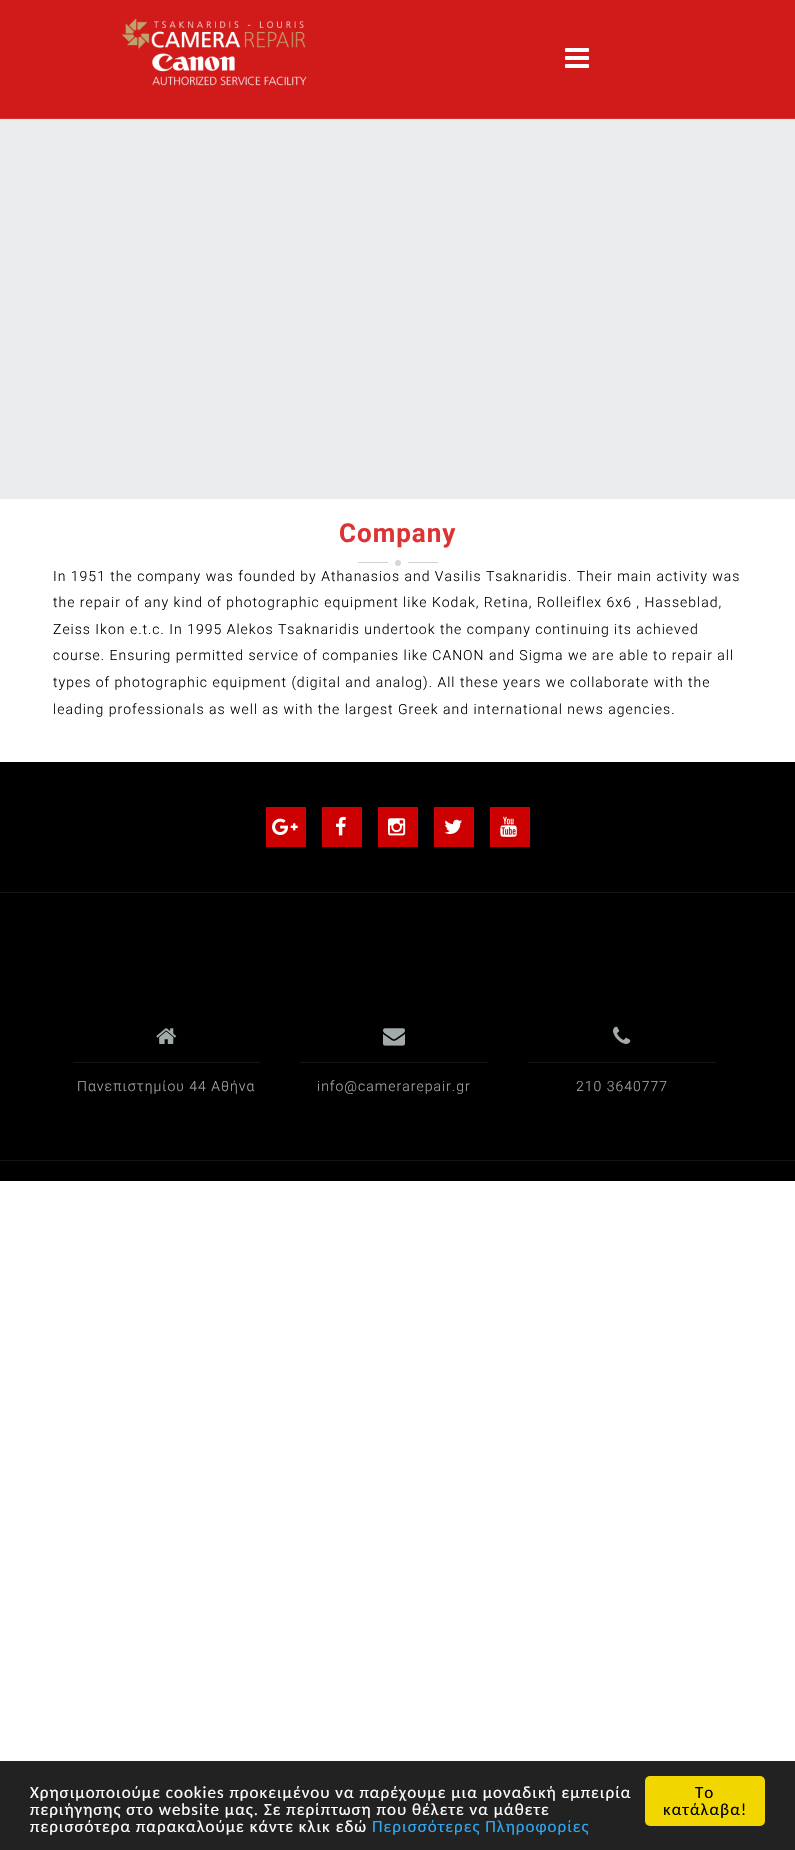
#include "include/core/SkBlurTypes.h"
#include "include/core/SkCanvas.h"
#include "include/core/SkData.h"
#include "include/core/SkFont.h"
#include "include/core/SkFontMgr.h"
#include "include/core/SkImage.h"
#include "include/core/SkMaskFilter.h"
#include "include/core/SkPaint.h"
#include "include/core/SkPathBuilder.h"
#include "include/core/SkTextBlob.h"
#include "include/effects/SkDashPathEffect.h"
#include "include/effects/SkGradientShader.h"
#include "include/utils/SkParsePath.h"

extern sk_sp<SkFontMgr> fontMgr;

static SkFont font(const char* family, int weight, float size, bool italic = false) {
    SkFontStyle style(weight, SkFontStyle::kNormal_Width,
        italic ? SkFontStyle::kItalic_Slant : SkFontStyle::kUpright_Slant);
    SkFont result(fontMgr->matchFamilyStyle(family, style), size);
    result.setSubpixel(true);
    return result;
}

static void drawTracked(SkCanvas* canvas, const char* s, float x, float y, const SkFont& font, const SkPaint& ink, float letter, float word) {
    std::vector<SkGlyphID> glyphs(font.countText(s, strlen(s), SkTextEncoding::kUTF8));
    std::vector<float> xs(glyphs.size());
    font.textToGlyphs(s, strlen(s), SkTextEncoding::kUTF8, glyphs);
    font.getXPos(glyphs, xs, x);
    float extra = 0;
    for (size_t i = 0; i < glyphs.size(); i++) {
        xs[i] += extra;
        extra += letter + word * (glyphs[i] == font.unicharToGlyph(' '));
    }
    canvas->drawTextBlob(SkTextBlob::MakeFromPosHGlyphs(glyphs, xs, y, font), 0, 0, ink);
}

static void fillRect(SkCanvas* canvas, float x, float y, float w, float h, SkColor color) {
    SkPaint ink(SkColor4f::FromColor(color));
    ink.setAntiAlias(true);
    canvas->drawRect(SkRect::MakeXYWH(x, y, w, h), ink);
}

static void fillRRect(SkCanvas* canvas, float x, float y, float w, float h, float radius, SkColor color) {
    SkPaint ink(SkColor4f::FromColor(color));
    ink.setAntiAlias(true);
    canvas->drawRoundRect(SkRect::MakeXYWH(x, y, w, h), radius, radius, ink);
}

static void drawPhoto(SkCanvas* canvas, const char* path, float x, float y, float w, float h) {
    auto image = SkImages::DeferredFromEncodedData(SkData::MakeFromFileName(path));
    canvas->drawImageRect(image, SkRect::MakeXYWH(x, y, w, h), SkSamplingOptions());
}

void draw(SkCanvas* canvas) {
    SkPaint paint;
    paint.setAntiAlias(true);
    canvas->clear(0xFFFFFFFF);
    fillRect(canvas, 0, 0, 795, 118, 0xFFD11A1A);
    fillRect(canvas, 0, 118, 795, 1, 0xFFD63131);
    drawPhoto(canvas, "assets/img1.png", 122, 18, 185, 68);
    drawPhoto(canvas, "assets/img2.png", 565, 48, 24, 20);
    fillRect(canvas, 0, 119, 795, 380, 0xFFEAEBEC);
    SkFont font1 = font("Roboto", 700, 26);
    paint.setColor(0xFFDD3333);
    drawTracked(canvas, "Company", 339, 542, font1, paint, 1, 0);
    paint.setColor(0xFFD2D8DA);
    canvas->drawCircle(398, 563, 3, paint);
    fillRect(canvas, 358, 562, 30, 1, 0xFFCED0D1);
    fillRect(canvas, 408, 562, 30, 1, 0xFFCED0D1);
    SkFont font2 = font("Roboto", 300, 14);
    paint.setColor(0xFF000000);
    drawTracked(canvas, "In 1951 the company was founded by Athanasios and Vasilis Tsaknaridis. Their main activity was", 53, 581, font2, paint, 1, 0);
    drawTracked(canvas, "the repair of any kind of photographic equipment like Kodak, Retina, Rolleiflex 6x6 , Hasseblad,", 53, 607, font2, paint, 1, 0);
    drawTracked(canvas, "Zeiss Ikon e.t.c. In 1995 Alekos Tsaknaridis undertook the company continuing its achieved", 53, 634, font2, paint, 1, 0);
    drawTracked(canvas, "course. Ensuring permitted service of companies like CANON and Sigma we are able to repair all", 53, 660, font2, paint, 1, 0);
    drawTracked(canvas, "types of photographic equipment (digital and analog). All these years we collaborate with the", 53, 687, font2, paint, 1, 0);
    drawTracked(canvas, "leading professionals as well as with the largest Greek and international news agencies.", 53, 714, font2, paint, 1, 0);
    fillRect(canvas, 0, 762, 795, 130, 0xFF000000);
    fillRect(canvas, 0, 892, 795, 1, 0xFF141414);
    fillRect(canvas, 266, 807, 40, 40, 0xFFCC0000);
    drawPhoto(canvas, "assets/img3.png", 272, 818, 26, 17);
    fillRect(canvas, 322, 807, 40, 40, 0xFFCC0000);
    drawPhoto(canvas, "assets/img4.png", 336, 816, 10, 20);
    fillRect(canvas, 378, 807, 40, 40, 0xFFCC0000);
    drawPhoto(canvas, "assets/img5.png", 388, 818, 18, 18);
    fillRect(canvas, 434, 807, 40, 40, 0xFFCC0000);
    drawPhoto(canvas, "assets/img6.png", 444, 819, 18, 15);
    fillRect(canvas, 490, 807, 40, 40, 0xFFCC0000);
    drawPhoto(canvas, "assets/img7.png", 500, 816, 17, 21);
    fillRect(canvas, 0, 893, 795, 267, 0xFF000000);
    fillRect(canvas, 0, 1160, 795, 1, 0xFF141414);
    drawPhoto(canvas, "assets/img8.png", 156, 1028, 21, 16);
    fillRect(canvas, 73, 1062, 187, 1, 0xFF141414);
    paint.setColor(0xFFA3AAAA);
    drawTracked(canvas, "Πανεπιστημίου 44 Αθήνα", 77, 1091, font2, paint, 1, 0);
    drawPhoto(canvas, "assets/img9.png", 383, 1028, 22, 18);
    fillRect(canvas, 300, 1062, 188, 1, 0xFF141414);
    drawTracked(canvas, "info@camerarepair.gr", 317, 1091, font2, paint, 1, 0);
    drawPhoto(canvas, "assets/img10.png", 613, 1026, 18, 18);
    fillRect(canvas, 528, 1062, 188, 1, 0xFF141414);
    drawTracked(canvas, "210 3640777", 576, 1091, font2, paint, 1, 0);
    fillRect(canvas, 0, 1161, 795, 20, 0xFF000000);
    fillRect(canvas, 0, 1761, 795, 89, 0xFF222222);
    SkFont font3 = font("Carlito", 400, 17);
    paint.setColor(0xFFFFFFFF);
    drawTracked(canvas, "Χρησιμοποιούμε cookies προκειμένου να παρέχουμε μια μοναδική εμπειρία", 30, 1798, font3, paint, 1, 0);
    drawTracked(canvas, "περιήγησης στο website μας. Σε περίπτωση που θέλετε να μάθετε", 30, 1815, font3, paint, 1, 0);
    drawTracked(canvas, "περισσότερα παρακαλούμε κάντε κλικ εδώ", 30, 1832, font3, paint, 1, 0);
    paint.setColor(0xFF31A8F0);
    drawTracked(canvas, "Περισσότερες Πληροφορίες", 372, 1832, font3, paint, 1, 0);
    fillRRect(canvas, 645, 1776, 120, 50, 5, 0xFFF1D600);
    paint.setColor(0xFF000000);
    drawTracked(canvas, "Το", 695, 1798, font3, paint, 1, 0);
    drawTracked(canvas, "κατάλαβα!", 663, 1815, font3, paint, 1, 0);
}
